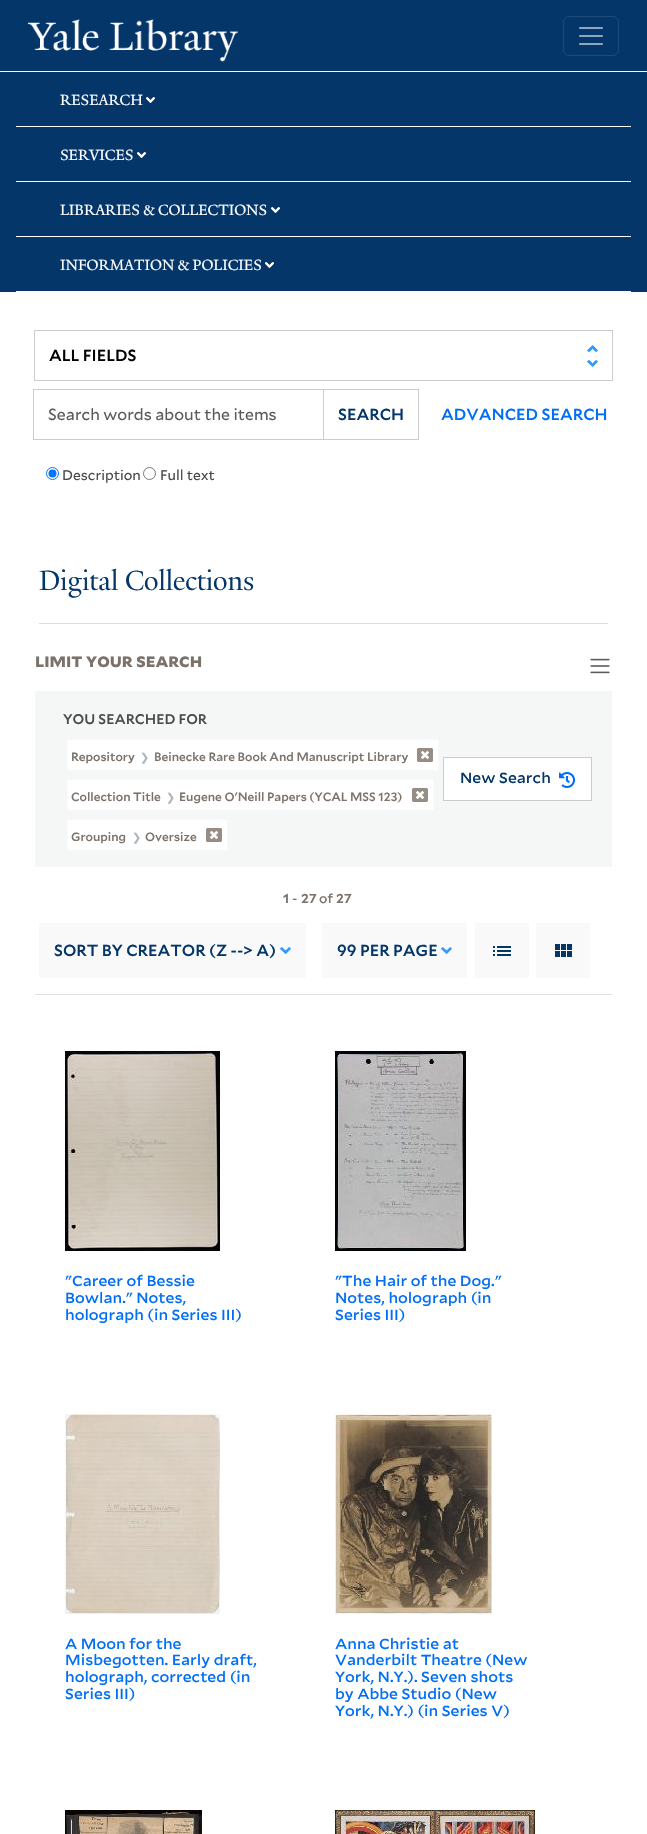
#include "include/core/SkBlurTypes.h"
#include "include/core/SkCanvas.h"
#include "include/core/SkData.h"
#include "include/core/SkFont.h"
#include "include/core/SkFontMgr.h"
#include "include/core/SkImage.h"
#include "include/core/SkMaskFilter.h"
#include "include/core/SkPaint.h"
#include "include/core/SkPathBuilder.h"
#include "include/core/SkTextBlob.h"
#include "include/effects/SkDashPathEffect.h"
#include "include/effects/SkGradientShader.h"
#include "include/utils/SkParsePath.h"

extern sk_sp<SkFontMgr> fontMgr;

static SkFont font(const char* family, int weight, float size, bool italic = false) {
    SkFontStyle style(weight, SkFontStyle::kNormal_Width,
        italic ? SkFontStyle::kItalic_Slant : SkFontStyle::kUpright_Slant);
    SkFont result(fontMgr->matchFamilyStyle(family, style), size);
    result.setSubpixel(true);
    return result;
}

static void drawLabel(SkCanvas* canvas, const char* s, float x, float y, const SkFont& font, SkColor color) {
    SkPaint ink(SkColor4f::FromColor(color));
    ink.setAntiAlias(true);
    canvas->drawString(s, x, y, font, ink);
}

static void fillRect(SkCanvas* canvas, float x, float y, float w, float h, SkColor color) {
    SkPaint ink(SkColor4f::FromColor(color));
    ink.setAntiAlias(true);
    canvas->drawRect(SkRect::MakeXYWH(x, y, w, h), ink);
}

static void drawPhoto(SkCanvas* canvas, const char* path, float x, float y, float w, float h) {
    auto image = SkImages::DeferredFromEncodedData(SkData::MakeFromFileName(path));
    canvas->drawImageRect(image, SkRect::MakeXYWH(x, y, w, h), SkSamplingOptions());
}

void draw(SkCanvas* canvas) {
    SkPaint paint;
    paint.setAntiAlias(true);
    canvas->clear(0xFFFFFFFF);
    fillRect(canvas, 0, 0, 647, 71, 0xFF043669);
    drawPhoto(canvas, "assets/img1.png", 28, 19, 210, 43);
    paint.setStroke(true);
    paint.setStrokeWidth(1);
    paint.setColor(0xFF1D4A78);
    canvas->drawRoundRect(SkRect::MakeXYWH(563.5f, 16.5f, 55, 39), 5.5f, 5.5f, paint);
    drawPhoto(canvas, "assets/img2.png", 579, 27, 24, 18);
    fillRect(canvas, 0, 72, 647, 220, 0xFF043669);
    fillRect(canvas, 16, 126, 615, 1, 0xFFFFFFFF);
    SkFont font1 = font("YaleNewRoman", 400, 16);
    drawLabel(canvas, "RESEARCH", 60, 105, font1, 0xFFFFFFFF);
    drawPhoto(canvas, "assets/img3.png", 146, 97, 9, 6);
    fillRect(canvas, 16, 181, 615, 1, 0xFFFFFFFF);
    drawLabel(canvas, "SERVICES", 60, 160, font1, 0xFFFFFFFF);
    drawPhoto(canvas, "assets/img3.png", 137, 152, 9, 6);
    fillRect(canvas, 16, 236, 615, 1, 0xFFFFFFFF);
    drawLabel(canvas, "LIBRARIES & COLLECTIONS", 60, 215, font1, 0xFFFFFFFF);
    drawPhoto(canvas, "assets/img3.png", 271, 207, 9, 6);
    fillRect(canvas, 16, 291, 615, 1, 0xFFFFFFFF);
    drawLabel(canvas, "INFORMATION & POLICIES", 60, 270, font1, 0xFFFFFFFF);
    drawPhoto(canvas, "assets/img3.png", 265, 262, 9, 6);
    drawPhoto(canvas, "assets/img4.png", 587, 345, 11, 22);
    paint.setColor(0xFFCCCCCC);
    canvas->drawRect(SkRect::MakeXYWH(34.5f, 330.5f, 578, 50), paint);
    SkFont font2 = font("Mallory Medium", 500, 16);
    drawLabel(canvas, "ALL FIELDS", 49, 361, font2, 0xFF000000);
    canvas->drawRect(SkRect::MakeXYWH(33.5f, 389.5f, 290, 50), paint);
    SkFont font3 = font("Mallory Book", 400, 16);
    drawLabel(canvas, "Search words about the items", 48, 420, font3, 0xFF595C5F);
    canvas->drawRect(SkRect::MakeXYWH(323.5f, 389.5f, 95, 50), paint);
    drawLabel(canvas, "SEARCH", 338, 420, font2, 0xFF043669);
    drawLabel(canvas, "ADVANCED SEARCH", 441, 420, font2, 0xFF006EF5);
    paint.setColor(0xFF0075FF);
    canvas->drawCircle(52.5f, 473.5f, 6, paint);
    paint.setStroke(false);
    canvas->drawCircle(52.5f, 473.5f, 4, paint);
    SkFont font4 = font("Mallory Book", 400, 14);
    drawLabel(canvas, "Description", 62, 480, font4, 0xFF4A4A4A);
    paint.setStroke(true);
    paint.setColor(0xFF767676);
    canvas->drawCircle(149.5f, 473.5f, 6, paint);
    drawLabel(canvas, "Full text", 160, 480, font4, 0xFF4A4A4A);
    fillRect(canvas, 39, 623, 569, 1, 0xFFDDDDDD);
    SkFont font5 = font("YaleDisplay", 400, 30);
    drawLabel(canvas, "Digital Collections", 39, 590, font5, 0xFF043669);
    SkFont font6 = font("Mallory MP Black", 900, 14.4f);
    drawLabel(canvas, "LIMIT YOUR SEARCH", 35, 667, font6, 0xFF7B736B);
    drawPhoto(canvas, "assets/img5.png", 590, 658, 20, 16);
    fillRect(canvas, 35, 691, 577, 176, 0xFFF5F6F6);
    SkFont font7 = font("Mallory Medium", 500, 14);
    drawLabel(canvas, "YOU SEARCHED FOR", 63, 724, font7, 0xFF4A4A4A);
    paint.setStroke(false);
    paint.setColor(0xFFFFFFFF);
    canvas->drawRect(SkRect::MakeXYWH(67.5f, 739.5f, 371, 31), paint);
    paint.setStroke(true);
    paint.setColor(0xFFF9F9F9);
    canvas->drawRect(SkRect::MakeXYWH(67.5f, 739.5f, 371, 31), paint);
    SkFont font8 = font("Mallory Medium", 500, 12);
    drawLabel(canvas, "Repository", 71, 761, font8, 0xFF7B736B);
    SkFont font9 = font("DejaVu Sans", 400, 11);
    drawLabel(canvas, "❯", 140, 761, font9, 0xFFADB5BD);
    drawLabel(canvas, "Beinecke Rare Book And Manuscript Library", 154, 761, font8, 0xFF7B736B);
    drawPhoto(canvas, "assets/img6.png", 417, 748, 16, 14);
    paint.setStroke(false);
    paint.setColor(0xFFFFFFFF);
    canvas->drawRect(SkRect::MakeXYWH(443.5f, 757.5f, 148, 43), paint);
    paint.setStroke(true);
    paint.setColor(0xFFCCCCCC);
    canvas->drawRect(SkRect::MakeXYWH(443.5f, 757.5f, 148, 43), paint);
    SkFont font10 = font("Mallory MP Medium", 500, 14);
    drawLabel(canvas, "New Search", 460, 783, font10, 0xFF043669);
    drawPhoto(canvas, "assets/img7.png", 559, 772, 16, 16);
    paint.setStroke(false);
    paint.setColor(0xFFFFFFFF);
    canvas->drawRect(SkRect::MakeXYWH(67.5f, 779.5f, 366, 31), paint);
    paint.setStroke(true);
    paint.setColor(0xFFF9F9F9);
    canvas->drawRect(SkRect::MakeXYWH(67.5f, 779.5f, 366, 31), paint);
    drawLabel(canvas, "Collection Title", 71, 801, font8, 0xFF7B736B);
    drawLabel(canvas, "❯", 166, 801, font9, 0xFFADB5BD);
    drawLabel(canvas, "Eugene O'Neill Papers (YCAL MSS 123)", 179, 801, font8, 0xFF7B736B);
    drawPhoto(canvas, "assets/img6.png", 412, 788, 16, 14);
    paint.setStroke(false);
    paint.setColor(0xFFFFFFFF);
    canvas->drawRect(SkRect::MakeXYWH(67.5f, 819.5f, 160, 31), paint);
    paint.setStroke(true);
    paint.setColor(0xFFF9F9F9);
    canvas->drawRect(SkRect::MakeXYWH(67.5f, 819.5f, 160, 31), paint);
    drawLabel(canvas, "Grouping", 71, 841, font8, 0xFF7B736B);
    drawLabel(canvas, "❯", 132, 841, font9, 0xFFADB5BD);
    drawLabel(canvas, "Oversize", 145, 841, font8, 0xFF7B736B);
    drawPhoto(canvas, "assets/img6.png", 206, 828, 16, 14);
    fillRect(canvas, 35, 994, 577, 1, 0xFFDEE2E6);
    SkFont font11 = font("Mallory MP Medium", 700, 12);
    drawLabel(canvas, "1", 283, 903, font11, 0xFF7B736B);
    SkFont font12 = font("Mallory MP Medium", 500, 12);
    drawLabel(canvas, "-", 292, 903, font12, 0xFF7B736B);
    drawLabel(canvas, "27", 301, 903, font11, 0xFF7B736B);
    drawLabel(canvas, "of", 319, 903, font12, 0xFF7B736B);
    drawLabel(canvas, "27", 336, 903, font11, 0xFF7B736B);
    fillRect(canvas, 39, 923, 267, 55, 0xFFF9F9F9);
    drawLabel(canvas, "SORT BY CREATOR (Z --> A)", 54, 956, font2, 0xFF043669);
    drawPhoto(canvas, "assets/img8.png", 280, 947, 11, 7);
    fillRect(canvas, 322, 923, 145, 55, 0xFFF9F9F9);
    drawLabel(canvas, "99 PER PAGE", 337, 956, font2, 0xFF043669);
    drawPhoto(canvas, "assets/img8.png", 441, 947, 11, 7);
    fillRect(canvas, 475, 923, 54, 55, 0xFFF9F9F9);
    drawPhoto(canvas, "assets/img9.png", 493, 946, 18, 10);
    fillRect(canvas, 536, 923, 54, 55, 0xFFF9F9F9);
    drawPhoto(canvas, "assets/img10.png", 555, 944, 17, 13);
    drawPhoto(canvas, "assets/img11.png", 65, 1051, 155, 200);
    drawLabel(canvas, "\"Career of Bessie", 65, 1286, font10, 0xFF006EF5);
    drawLabel(canvas, "Bowlan.\" Notes,", 65, 1303, font10, 0xFF006EF5);
    drawLabel(canvas, "holograph (in Series III)", 65, 1320, font10, 0xFF006EF5);
    drawPhoto(canvas, "assets/img12.png", 335, 1051, 131, 200);
    drawLabel(canvas, "\"The Hair of the Dog.\"", 335, 1286, font10, 0xFF006EF5);
    drawLabel(canvas, "Notes, holograph (in", 335, 1303, font10, 0xFF006EF5);
    drawLabel(canvas, "Series III)", 335, 1320, font10, 0xFF006EF5);
    drawPhoto(canvas, "assets/img13.png", 65, 1414, 155, 200);
    drawLabel(canvas, "A Moon for the", 65, 1649, font10, 0xFF006EF5);
    drawLabel(canvas, "Misbegotten. Early draft,", 65, 1665, font10, 0xFF006EF5);
    drawLabel(canvas, "holograph, corrected (in", 65, 1682, font10, 0xFF006EF5);
    drawLabel(canvas, "Series III)", 65, 1699, font10, 0xFF006EF5);
    drawPhoto(canvas, "assets/img14.png", 335, 1414, 157, 200);
    drawLabel(canvas, "Anna Christie at", 335, 1649, font10, 0xFF006EF5);
    drawLabel(canvas, "Vanderbilt Theatre (New", 335, 1665, font10, 0xFF006EF5);
    drawLabel(canvas, "York, N.Y.). Seven shots", 335, 1682, font10, 0xFF006EF5);
    drawLabel(canvas, "by Abbe Studio (New", 335, 1699, font10, 0xFF006EF5);
    drawLabel(canvas, "York, N.Y.) (in Series V)", 335, 1716, font10, 0xFF006EF5);
    drawPhoto(canvas, "assets/img15.png", 65, 1810, 137, 24);
    drawPhoto(canvas, "assets/img16.png", 335, 1810, 200, 24);
}
